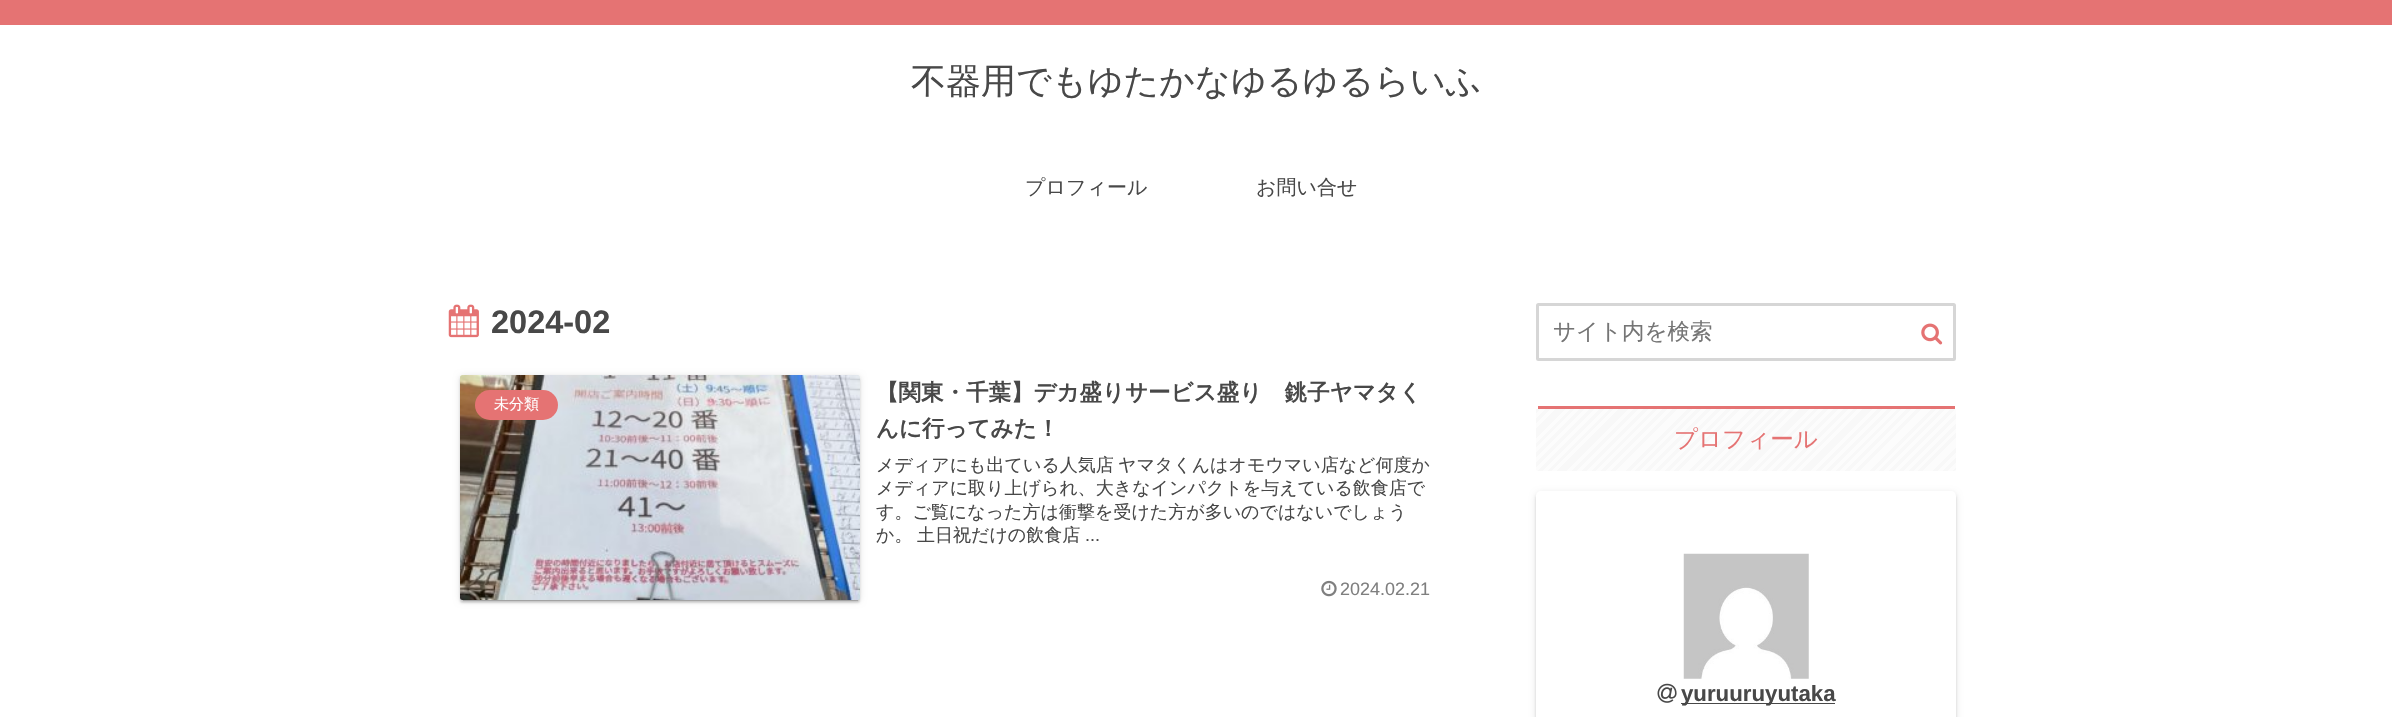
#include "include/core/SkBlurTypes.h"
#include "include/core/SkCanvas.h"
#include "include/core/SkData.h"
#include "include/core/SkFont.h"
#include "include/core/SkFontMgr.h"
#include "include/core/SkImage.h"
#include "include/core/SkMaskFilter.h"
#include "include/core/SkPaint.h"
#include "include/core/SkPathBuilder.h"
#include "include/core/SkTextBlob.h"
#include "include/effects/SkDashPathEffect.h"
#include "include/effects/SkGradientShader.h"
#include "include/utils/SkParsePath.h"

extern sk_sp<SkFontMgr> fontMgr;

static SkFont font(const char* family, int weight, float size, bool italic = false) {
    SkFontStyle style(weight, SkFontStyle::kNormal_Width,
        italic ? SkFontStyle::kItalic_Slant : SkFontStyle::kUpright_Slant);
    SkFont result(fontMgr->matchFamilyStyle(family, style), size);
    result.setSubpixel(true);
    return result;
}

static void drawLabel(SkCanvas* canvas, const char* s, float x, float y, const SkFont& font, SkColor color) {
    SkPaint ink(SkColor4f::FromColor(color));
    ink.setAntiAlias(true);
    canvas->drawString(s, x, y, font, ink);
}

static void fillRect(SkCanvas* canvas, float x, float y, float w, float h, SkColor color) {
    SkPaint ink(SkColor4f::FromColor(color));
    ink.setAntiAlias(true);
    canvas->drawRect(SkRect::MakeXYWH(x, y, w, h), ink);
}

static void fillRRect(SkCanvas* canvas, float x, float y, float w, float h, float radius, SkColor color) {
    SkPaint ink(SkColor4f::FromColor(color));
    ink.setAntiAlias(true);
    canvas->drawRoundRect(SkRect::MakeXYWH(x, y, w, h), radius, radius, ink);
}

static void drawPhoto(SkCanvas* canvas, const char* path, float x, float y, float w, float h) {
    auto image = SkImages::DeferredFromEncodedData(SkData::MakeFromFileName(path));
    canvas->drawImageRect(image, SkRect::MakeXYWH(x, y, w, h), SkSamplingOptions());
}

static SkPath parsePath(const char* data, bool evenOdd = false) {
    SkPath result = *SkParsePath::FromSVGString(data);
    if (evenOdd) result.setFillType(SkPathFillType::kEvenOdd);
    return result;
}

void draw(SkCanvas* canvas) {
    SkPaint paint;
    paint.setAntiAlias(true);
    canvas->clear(0xFFFFFFFF);
    fillRect(canvas, 0, 0, 2392, 25, 0xFFE57373);
    SkFont font1 = font("WenQuanYi Zen Hei", 500, 35);
    drawLabel(canvas, "不器用でもゆたかなゆるゆるらいふ", 911, 93, font1, 0xFF484848);
    SkFont font2 = font("WenQuanYi Zen Hei", 500, 20);
    drawLabel(canvas, "プロフィール", 1025, 194, font2, 0xFF484848);
    drawLabel(canvas, "お問い合せ", 1256, 194, font2, 0xFF484848);
    drawPhoto(canvas, "assets/img1.png", 448, 304, 31, 34);
    SkFont font3 = font("Liberation Sans", 700, 32.5f);
    drawLabel(canvas, "2024-02", 491, 333, font3, 0xFF484848);
    paint.setColor(0x1F000000);
    paint.setMaskFilter(SkMaskFilter::MakeBlur(kNormal_SkBlurStyle, 3));
    canvas->drawRoundRect(SkRect::MakeXYWH(460, 376, 400, 225), 2.5f, 2.5f, paint);
    paint.setMaskFilter(nullptr);
    paint.setColor(0x24000000);
    paint.setMaskFilter(SkMaskFilter::MakeBlur(kNormal_SkBlurStyle, 1));
    canvas->drawRoundRect(SkRect::MakeXYWH(460, 378, 400, 225), 2.5f, 2.5f, paint);
    paint.setMaskFilter(nullptr);
    paint.setColor(0x33000000);
    paint.setMaskFilter(SkMaskFilter::MakeBlur(kNormal_SkBlurStyle, 0.5f));
    canvas->drawRect(SkRect::MakeXYWH(463, 381, 395, 220), paint);
    paint.setMaskFilter(nullptr);
    drawPhoto(canvas, "assets/img2.png", 460, 375, 400, 225);
    fillRRect(canvas, 475, 390, 83, 30, 15, 0xFFE57373);
    SkFont font4 = font("WenQuanYi Zen Hei", 500, 15);
    drawLabel(canvas, "未分類", 494, 409, font4, 0xFFFFFFFF);
    SkFont font5 = font("WenQuanYi Zen Hei", 700, 22.5f);
    drawLabel(canvas, "【関東・千葉】デカ盛りサービス盛り　銚子ヤマタく", 876, 400, font5, 0xFF484848);
    drawLabel(canvas, "んに行ってみた！", 876, 436, font5, 0xFF484848);
    SkFont font6 = font("WenQuanYi Zen Hei", 500, 18);
    drawLabel(canvas, "メディアにも出ている人気店", 876, 471, font6, 0xFF484848);
    drawLabel(canvas, "ヤマタくんはオモウマい店など何度か", 1118, 471, font6, 0xFF484848);
    drawLabel(canvas, "メディアに取り上げられ、大きなインパクトを与えている飲食店で", 876, 494, font6, 0xFF484848);
    drawLabel(canvas, "す。ご覧になった方は衝撃を受けた方が多いのではないでしょう", 876, 518, font6, 0xFF484848);
    drawLabel(canvas, "か。", 876, 541, font6, 0xFF484848);
    drawLabel(canvas, "土日祝だけの飲食店", 917, 541, font6, 0xFF484848);
    SkFont font7 = font("Liberation Sans", 400, 18);
    drawLabel(canvas, "...", 1085, 541, font7, 0xFF484848);
    drawPhoto(canvas, "assets/img3.png", 1321, 580, 16, 17);
    drawLabel(canvas, "2024.02.21", 1340, 595, font7, 0xFF7F7F7F);
    paint.setStroke(true);
    paint.setStrokeWidth(3);
    paint.setColor(0xFFD6D6D6);
    canvas->drawRoundRect(SkRect::MakeXYWH(1537.5f, 304.5f, 417, 55), 1, 1, paint);
    SkFont font8 = font("WenQuanYi Zen Hei", 500, 22.5f);
    drawLabel(canvas, "サイト内を検索", 1553, 339, font8, 0xFF757575);
    drawPhoto(canvas, "assets/img4.png", 1921, 323, 22, 22);
    paint.setStroke(false);
    {
        const SkColor colors[] = {0xFFF8F8F8, 0xFFF8F8F8, 0xFFFCFCFC, 0xFFFCFCFC, 0xFFF8F8F8, 0xFFF8F8F8, 0xFFFCFCFC, 0xFFFCFCFC, 0xFFF8F8F8, 0xFFF8F8F8, 0xFFFCFCFC, 0xFFFCFCFC, 0xFFF8F8F8, 0xFFF8F8F8, 0xFFFCFCFC, 0xFFFCFCFC, 0xFFF8F8F8, 0xFFF8F8F8, 0xFFFCFCFC, 0xFFFCFCFC, 0xFFF8F8F8, 0xFFF8F8F8, 0xFFFCFCFC, 0xFFFCFCFC, 0xFFF8F8F8, 0xFFF8F8F8, 0xFFFCFCFC, 0xFFFCFCFC, 0xFFF8F8F8, 0xFFF8F8F8, 0xFFFCFCFC, 0xFFFCFCFC, 0xFFF8F8F8, 0xFFF8F8F8, 0xFFFCFCFC, 0xFFFCFCFC, 0xFFF8F8F8, 0xFFF8F8F8, 0xFFFCFCFC, 0xFFFCFCFC, 0xFFF8F8F8, 0xFFF8F8F8, 0xFFFCFCFC, 0xFFFCFCFC, 0xFFF8F8F8, 0xFFF8F8F8, 0xFFFCFCFC, 0xFFFCFCFC, 0xFFF8F8F8, 0xFFF8F8F8, 0xFFFCFCFC, 0xFFFCFCFC, 0xFFF8F8F8, 0xFFF8F8F8, 0xFFFCFCFC, 0xFFFCFCFC, 0xFFF8F8F8, 0xFFF8F8F8, 0xFFFCFCFC, 0xFFFCFCFC, 0xFFF8F8F8, 0xFFF8F8F8, 0xFFFCFCFC, 0xFFFCFCFC, 0xFFF8F8F8, 0xFFF8F8F8, 0xFFFCFCFC, 0xFFFCFCFC, 0xFFF8F8F8, 0xFFF8F8F8, 0xFFFCFCFC, 0xFFFCFCFC, 0xFFF8F8F8, 0xFFF8F8F8, 0xFFFCFCFC, 0xFFFCFCFC, 0xFFF8F8F8, 0xFFF8F8F8, 0xFFFCFCFC, 0xFFFCFCFC, 0xFFF8F8F8, 0xFFF8F8F8, 0xFFFCFCFC, 0xFFFCFCFC, 0xFFF8F8F8, 0xFFF8F8F8, 0xFFFCFCFC, 0xFFFCFCFC, 0xFFF8F8F8, 0xFFF8F8F8, 0xFFFCFCFC, 0xFFFCFCFC, 0xFFF8F8F8, 0xFFF8F8F8, 0xFFFCFCFC, 0xFFFCFCFC, 0xFFF8F8F8, 0xFFF8F8F8, 0xFFFCFCFC, 0xFFFCFCFC, 0xFFF8F8F8, 0xFFF8F8F8, 0xFFFCFCFC, 0xFFFCFCFC, 0xFFF8F8F8, 0xFFF8F8F8, 0xFFFCFCFC, 0xFFFCFCFC, 0xFFF8F8F8, 0xFFF8F8F8, 0xFFFCFCFC, 0xFFFCFCFC, 0xFFF8F8F8, 0xFFF8F8F8, 0xFFFCFCFC, 0xFFFCFCFC, 0xFFF8F8F8, 0xFFF8F8F8, 0xFFFCFCFC, 0xFFFCFCFC, 0xFFF8F8F8, 0xFFF8F8F8, 0xFFFCFCFC, 0xFFFCFCFC, 0xFFF8F8F8, 0xFFF8F8F8, 0xFFFCFCFC, 0xFFFCFCFC, 0xFFF8F8F8, 0xFFF8F8F8, 0xFFFCFCFC, 0xFFFCFCFC, 0xFFF8F8F8, 0xFFF8F8F8, 0xFFFCFCFC, 0xFFFCFCFC, 0xFFF8F8F8, 0xFFF8F8F8, 0xFFFCFCFC, 0xFFFCFCFC, 0xFFF8F8F8, 0xFFF8F8F8, 0xFFFCFCFC, 0xFFFCFCFC, 0xFFF8F8F8, 0xFFF8F8F8, 0xFFFCFCFC, 0xFFFCFCFC, 0xFFF8F8F8, 0xFFF8F8F8, 0xFFFCFCFC, 0xFFFCFCFC, 0xFFF8F8F8, 0xFFF8F8F8, 0xFFFCFCFC, 0xFFFCFCFC, 0xFFF8F8F8, 0xFFF8F8F8, 0xFFFCFCFC, 0xFFFCFCFC, 0xFFF8F8F8, 0xFFF8F8F8, 0xFFFCFCFC, 0xFFFCFCFC, 0xFFF8F8F8, 0xFFF8F8F8, 0xFFFCFCFC, 0xFFFCFCFC, 0xFFF8F8F8, 0xFFF8F8F8, 0xFFFCFCFC, 0xFFFCFCFC, 0xFFF8F8F8, 0xFFF8F8F8, 0xFFFCFCFC, 0xFFFCFCFC, 0xFFF8F8F8, 0xFFF8F8F8, 0xFFFCFCFC, 0xFFFCFCFC, 0xFFF8F8F8, 0xFFF8F8F8, 0xFFFCFCFC, 0xFFFCFCFC};
        const float stops[] = {0, 0.01f, 0.01f, 0.02f, 0.02f, 0.03f, 0.03f, 0.04f, 0.04f, 0.05f, 0.05f, 0.07f, 0.07f, 0.08f, 0.08f, 0.09f, 0.09f, 0.1f, 0.1f, 0.11f, 0.11f, 0.12f, 0.12f, 0.13f, 0.13f, 0.14f, 0.14f, 0.15f, 0.15f, 0.16f, 0.16f, 0.17f, 0.17f, 0.18f, 0.18f, 0.2f, 0.2f, 0.21f, 0.21f, 0.22f, 0.22f, 0.23f, 0.23f, 0.24f, 0.24f, 0.25f, 0.25f, 0.26f, 0.26f, 0.27f, 0.27f, 0.28f, 0.28f, 0.29f, 0.29f, 0.3f, 0.3f, 0.32f, 0.32f, 0.33f, 0.33f, 0.34f, 0.34f, 0.35f, 0.35f, 0.36f, 0.36f, 0.37f, 0.37f, 0.38f, 0.38f, 0.39f, 0.39f, 0.4f, 0.4f, 0.41f, 0.41f, 0.42f, 0.42f, 0.43f, 0.43f, 0.45f, 0.45f, 0.46f, 0.46f, 0.47f, 0.47f, 0.48f, 0.48f, 0.49f, 0.49f, 0.5f, 0.5f, 0.51f, 0.51f, 0.52f, 0.52f, 0.53f, 0.53f, 0.54f, 0.54f, 0.55f, 0.55f, 0.57f, 0.57f, 0.58f, 0.58f, 0.59f, 0.59f, 0.6f, 0.6f, 0.61f, 0.61f, 0.62f, 0.62f, 0.63f, 0.63f, 0.64f, 0.64f, 0.65f, 0.65f, 0.66f, 0.66f, 0.67f, 0.67f, 0.68f, 0.68f, 0.7f, 0.7f, 0.71f, 0.71f, 0.72f, 0.72f, 0.73f, 0.73f, 0.74f, 0.74f, 0.75f, 0.75f, 0.76f, 0.76f, 0.77f, 0.77f, 0.78f, 0.78f, 0.79f, 0.79f, 0.8f, 0.8f, 0.82f, 0.82f, 0.83f, 0.83f, 0.84f, 0.84f, 0.85f, 0.85f, 0.86f, 0.86f, 0.87f, 0.87f, 0.88f, 0.88f, 0.89f, 0.89f, 0.9f, 0.9f, 0.91f, 0.91f, 0.92f, 0.92f, 0.93f, 0.93f, 0.95f, 0.95f, 0.96f, 0.96f, 0.97f, 0.97f, 0.98f, 0.98f, 0.99f, 0.99f, 1};
        const SkPoint ends[] = {{1867, 561}, {1623, 317}};
        paint.setShader(SkGradientShader::MakeLinear(ends, colors, stops, 184, SkTileMode::kClamp));
        paint.setAlpha(255);
    }
    canvas->drawPath(parsePath("M1539 409H1956V469C1956 470 1955 471 1954 471H1539C1537 471 1536 470 1536 469V409Z"), paint);
    fillRect(canvas, 1538, 406, 417, 3, 0xFFE57373);
    SkFont font9 = font("WenQuanYi Zen Hei", 500, 23.5f);
    drawLabel(canvas, "プロフィール", 1674, 447, font9, 0xFFE57373);
    canvas->save();
    canvas->clipPath(parsePath("M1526 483H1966V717H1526ZM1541 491H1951C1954 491 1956 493 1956 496V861C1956 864 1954 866 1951 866H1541C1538 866 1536 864 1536 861V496C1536 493 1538 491 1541 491Z", true), true);
    paint.setShader(nullptr);
    paint.setColor(0x1F000000);
    paint.setMaskFilter(SkMaskFilter::MakeBlur(kNormal_SkBlurStyle, 3));
    canvas->drawRoundRect(SkRect::MakeXYWH(1536, 493, 420, 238), 5, 5, paint);
    paint.setMaskFilter(nullptr);
    canvas->restore();
    canvas->save();
    canvas->clipPath(parsePath("M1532 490H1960V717H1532ZM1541 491H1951C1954 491 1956 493 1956 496V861C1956 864 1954 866 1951 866H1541C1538 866 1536 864 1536 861V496C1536 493 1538 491 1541 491Z", true), true);
    paint.setColor(0x24000000);
    paint.setMaskFilter(SkMaskFilter::MakeBlur(kNormal_SkBlurStyle, 1));
    canvas->drawRoundRect(SkRect::MakeXYWH(1536, 494, 420, 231), 5, 5, paint);
    paint.setMaskFilter(nullptr);
    canvas->restore();
    drawPhoto(canvas, "assets/img5.png", 1683, 553, 126, 126);
    drawPhoto(canvas, "assets/img6.png", 1657, 683, 20, 20);
    fillRect(canvas, 1681, 703, 154, 1, 0xFF484848);
    SkFont font10 = font("Liberation Sans", 700, 22.25f);
    drawLabel(canvas, "yuruuruyutaka", 1681, 701, font10, 0xFF484848);
}
